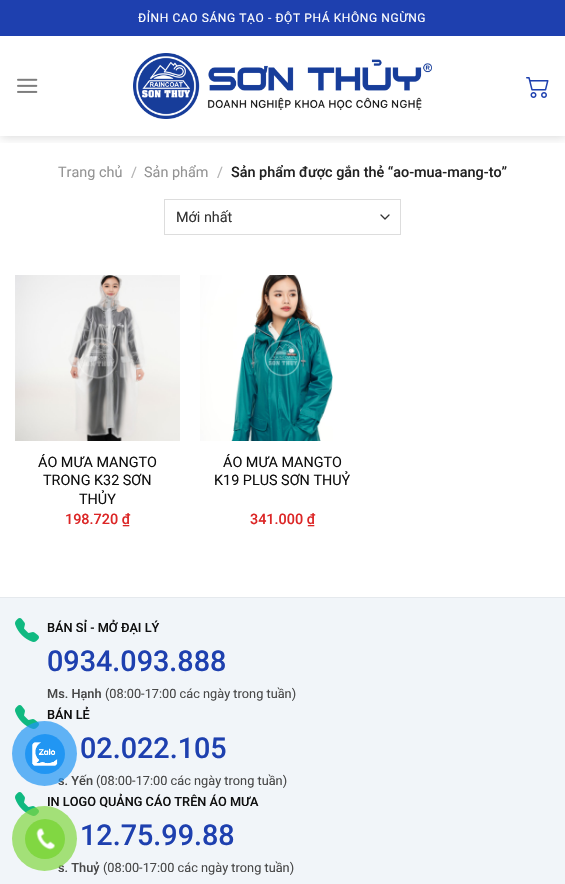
#include "include/core/SkBlurTypes.h"
#include "include/core/SkCanvas.h"
#include "include/core/SkData.h"
#include "include/core/SkFont.h"
#include "include/core/SkFontMgr.h"
#include "include/core/SkImage.h"
#include "include/core/SkMaskFilter.h"
#include "include/core/SkPaint.h"
#include "include/core/SkPathBuilder.h"
#include "include/core/SkTextBlob.h"
#include "include/effects/SkDashPathEffect.h"
#include "include/effects/SkGradientShader.h"
#include "include/utils/SkParsePath.h"

extern sk_sp<SkFontMgr> fontMgr;

static SkFont font(const char* family, int weight, float size, bool italic = false) {
    SkFontStyle style(weight, SkFontStyle::kNormal_Width,
        italic ? SkFontStyle::kItalic_Slant : SkFontStyle::kUpright_Slant);
    SkFont result(fontMgr->matchFamilyStyle(family, style), size);
    result.setSubpixel(true);
    return result;
}

static void drawLabel(SkCanvas* canvas, const char* s, float x, float y, const SkFont& font, SkColor color) {
    SkPaint ink(SkColor4f::FromColor(color));
    ink.setAntiAlias(true);
    canvas->drawString(s, x, y, font, ink);
}

static void drawTracked(SkCanvas* canvas, const char* s, float x, float y, const SkFont& font, const SkPaint& ink, float letter, float word) {
    std::vector<SkGlyphID> glyphs(font.countText(s, strlen(s), SkTextEncoding::kUTF8));
    std::vector<float> xs(glyphs.size());
    font.textToGlyphs(s, strlen(s), SkTextEncoding::kUTF8, glyphs);
    font.getXPos(glyphs, xs, x);
    float extra = 0;
    for (size_t i = 0; i < glyphs.size(); i++) {
        xs[i] += extra;
        extra += letter + word * (glyphs[i] == font.unicharToGlyph(' '));
    }
    canvas->drawTextBlob(SkTextBlob::MakeFromPosHGlyphs(glyphs, xs, y, font), 0, 0, ink);
}

static void fillRect(SkCanvas* canvas, float x, float y, float w, float h, SkColor color) {
    SkPaint ink(SkColor4f::FromColor(color));
    ink.setAntiAlias(true);
    canvas->drawRect(SkRect::MakeXYWH(x, y, w, h), ink);
}

static void drawPhoto(SkCanvas* canvas, const char* path, float x, float y, float w, float h) {
    auto image = SkImages::DeferredFromEncodedData(SkData::MakeFromFileName(path));
    canvas->drawImageRect(image, SkRect::MakeXYWH(x, y, w, h), SkSamplingOptions());
}

static SkPath parsePath(const char* data, bool evenOdd = false) {
    SkPath result = *SkParsePath::FromSVGString(data);
    if (evenOdd) result.setFillType(SkPathFillType::kEvenOdd);
    return result;
}

void draw(SkCanvas* canvas) {
    SkPaint paint;
    paint.setAntiAlias(true);
    canvas->clear(0xFFFFFFFF);
    canvas->save();
    canvas->clipRect(SkRect::MakeXYWH(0, 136, 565, 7));
    paint.setColor(0x26000000);
    paint.setMaskFilter(SkMaskFilter::MakeBlur(kNormal_SkBlurStyle, 5));
    canvas->drawRect(SkRect::MakeXYWH(1, 1, 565, 136), paint);
    paint.setMaskFilter(nullptr);
    canvas->restore();
    fillRect(canvas, 0, 0, 565, 36, 0xFF1E40AF);
    SkFont font1 = font("Roboto", 400, 12);
    paint.setColor(0xFFFFFFFF);
    drawTracked(canvas, "ĐỈNH CAO SÁNG TẠO - ĐỘT PHÁ KHÔNG NGỪNG", 138, 22, font1, paint, 0.6f, 0);
    drawPhoto(canvas, "assets/img1.png", 17, 78, 21, 15);
    drawPhoto(canvas, "assets/img2.png", 133, 53, 299, 66);
    drawPhoto(canvas, "assets/img3.png", 526, 77, 23, 21);
    SkFont font2 = font("Roboto", 400, 14.4f);
    drawLabel(canvas, "Trang chủ", 58, 177, font2, 0xFF949494);
    drawLabel(canvas, "/", 131, 177, font2, 0xFFB2B2B2);
    drawLabel(canvas, "Sản phẩm", 144, 177, font2, 0xFF949494);
    drawLabel(canvas, "/", 217, 177, font2, 0xFFB2B2B2);
    SkFont font3 = font("Roboto", 500, 14.4f);
    drawLabel(canvas, "Sản phẩm được gắn thẻ “ao-mua-mang-to”", 231, 177, font3, 0xFF222222);
    paint.setStroke(true);
    paint.setStrokeWidth(1.3f);
    paint.setStrokeCap(SkPaint::kRound_Cap);
    paint.setStrokeJoin(SkPaint::kRound_Join);
    paint.setColor(0xFF333333);
    canvas->drawPath(parsePath("M381 215L385 219L389 215"), paint);
    paint.setStrokeWidth(1);
    paint.setStrokeCap(SkPaint::kButt_Cap);
    paint.setStrokeJoin(SkPaint::kMiter_Join);
    paint.setColor(0xFFDDDDDD);
    canvas->drawRect(SkRect::MakeXYWH(164.5f, 199.5f, 236, 35), paint);
    drawLabel(canvas, "Mới nhất", 176, 222, font2, 0xFF333333);
    drawPhoto(canvas, "assets/img4.png", 15, 275, 165, 166);
    drawLabel(canvas, "ÁO MƯA MANGTO", 38, 467, font2, 0xFF101010);
    drawLabel(canvas, "TRONG K32 SƠN", 43, 485, font2, 0xFF101010);
    drawLabel(canvas, "THỦY", 79, 504, font2, 0xFF101010);
    drawLabel(canvas, "198.720 ₫", 65, 524, font3, 0xFFDC2626);
    drawPhoto(canvas, "assets/img5.png", 200, 275, 133, 166);
    drawLabel(canvas, "ÁO MƯA MANGTO", 223, 467, font2, 0xFF101010);
    drawLabel(canvas, "K19 PLUS SƠN THUỶ", 214, 485, font2, 0xFF101010);
    drawLabel(canvas, "341.000 ₫", 250, 524, font3, 0xFFDC2626);
    fillRect(canvas, 0, 598, 565, 286, 0xFFF1F5F9);
    fillRect(canvas, 0, 597, 565, 1, 0xFFE5E9ED);
    drawPhoto(canvas, "assets/img6.png", 15, 618, 24, 24);
    SkFont font4 = font("Roboto", 500, 12.75f);
    drawLabel(canvas, "BÁN SỈ - MỞ ĐẠI LÝ", 47, 632, font4, 0xFF101010);
    SkFont font5 = font("Roboto", 500, 28.75f);
    drawLabel(canvas, "0934.093.888", 47, 671, font5, 0xFF1E40AF);
    drawLabel(canvas, "Ms. Hạnh", 47, 698, font4, 0xFF484848);
    SkFont font6 = font("Roboto", 400, 12.75f);
    drawLabel(canvas, "(08:00-17:00 các ngày trong tuần)", 105, 698, font6, 0xFF484848);
    drawPhoto(canvas, "assets/img6.png", 15, 705, 24, 24);
    drawLabel(canvas, "BÁN LẺ", 47, 719, font4, 0xFF101010);
    drawLabel(canvas, "02.022.105", 80, 758, font5, 0xFF1E40AF);
    drawLabel(canvas, "s. Yến", 58, 785, font4, 0xFF484848);
    drawLabel(canvas, "(08:00-17:00 các ngày trong tuần)", 96, 785, font6, 0xFF484848);
    drawPhoto(canvas, "assets/img6.png", 15, 792, 24, 24);
    drawLabel(canvas, "IN LOGO QUẢNG CÁO TRÊN ÁO MƯA", 47, 806, font4, 0xFF101010);
    drawLabel(canvas, "12.75.99.88", 80, 845, font5, 0xFF1E40AF);
    drawLabel(canvas, "s. Thuỷ", 58, 872, font4, 0xFF484848);
    drawLabel(canvas, "(08:00-17:00 các ngày trong tuần)", 103, 872, font6, 0xFF484848);
    paint.setStroke(false);
    paint.setColor(0xB32196F3);
    canvas->drawCircle(44.5f, 753.5f, 32.5f, paint);
    paint.setColor(0xFF2196F3);
    canvas->drawCircle(45, 754, 20, paint);
    drawPhoto(canvas, "assets/img7.png", 32, 742, 26, 24);
    paint.setColor(0xB381D742);
    canvas->drawCircle(44.5f, 838.5f, 32.5f, paint);
    paint.setColor(0xFF81D742);
    canvas->drawCircle(45, 839, 20, paint);
    drawPhoto(canvas, "assets/img8.png", 36, 828, 19, 22);
}
